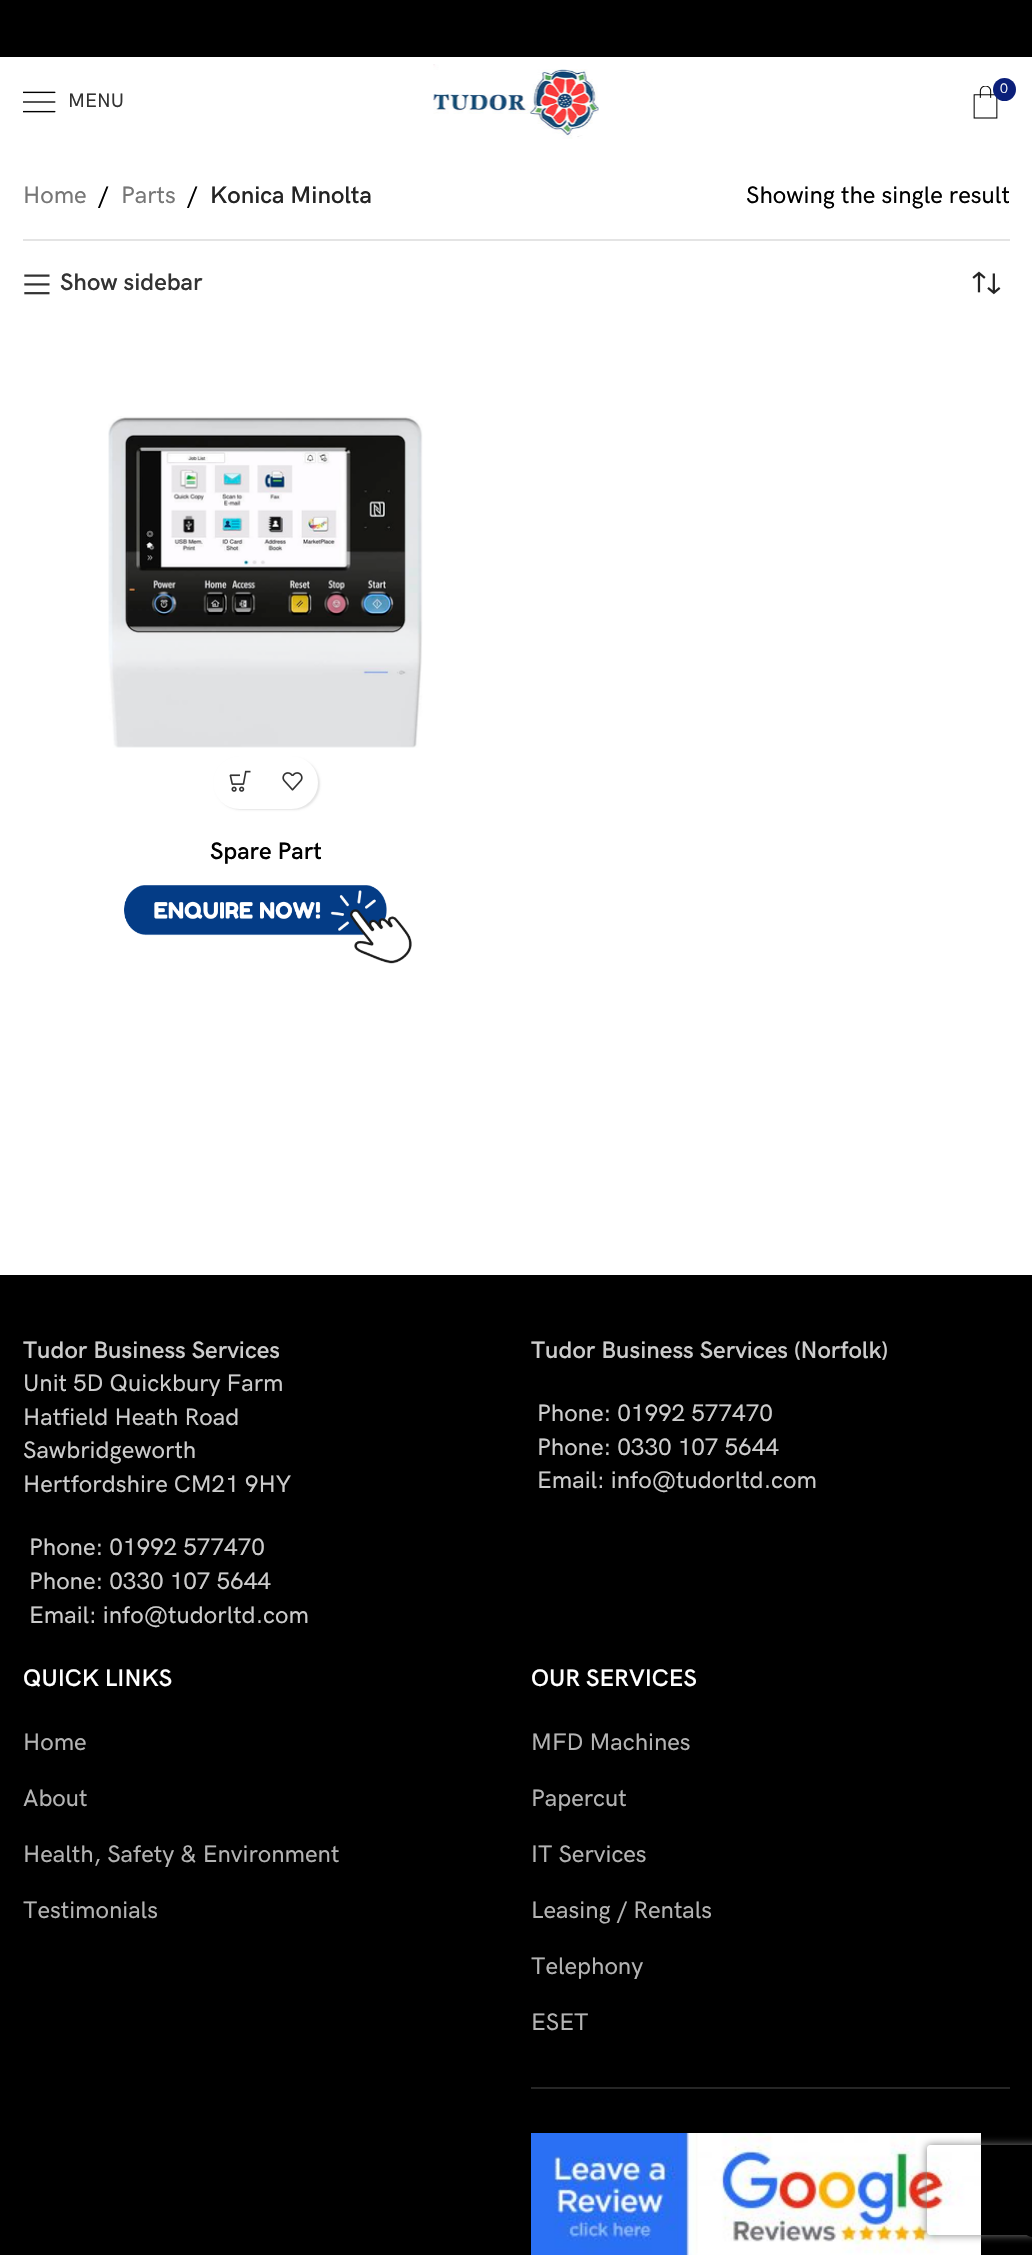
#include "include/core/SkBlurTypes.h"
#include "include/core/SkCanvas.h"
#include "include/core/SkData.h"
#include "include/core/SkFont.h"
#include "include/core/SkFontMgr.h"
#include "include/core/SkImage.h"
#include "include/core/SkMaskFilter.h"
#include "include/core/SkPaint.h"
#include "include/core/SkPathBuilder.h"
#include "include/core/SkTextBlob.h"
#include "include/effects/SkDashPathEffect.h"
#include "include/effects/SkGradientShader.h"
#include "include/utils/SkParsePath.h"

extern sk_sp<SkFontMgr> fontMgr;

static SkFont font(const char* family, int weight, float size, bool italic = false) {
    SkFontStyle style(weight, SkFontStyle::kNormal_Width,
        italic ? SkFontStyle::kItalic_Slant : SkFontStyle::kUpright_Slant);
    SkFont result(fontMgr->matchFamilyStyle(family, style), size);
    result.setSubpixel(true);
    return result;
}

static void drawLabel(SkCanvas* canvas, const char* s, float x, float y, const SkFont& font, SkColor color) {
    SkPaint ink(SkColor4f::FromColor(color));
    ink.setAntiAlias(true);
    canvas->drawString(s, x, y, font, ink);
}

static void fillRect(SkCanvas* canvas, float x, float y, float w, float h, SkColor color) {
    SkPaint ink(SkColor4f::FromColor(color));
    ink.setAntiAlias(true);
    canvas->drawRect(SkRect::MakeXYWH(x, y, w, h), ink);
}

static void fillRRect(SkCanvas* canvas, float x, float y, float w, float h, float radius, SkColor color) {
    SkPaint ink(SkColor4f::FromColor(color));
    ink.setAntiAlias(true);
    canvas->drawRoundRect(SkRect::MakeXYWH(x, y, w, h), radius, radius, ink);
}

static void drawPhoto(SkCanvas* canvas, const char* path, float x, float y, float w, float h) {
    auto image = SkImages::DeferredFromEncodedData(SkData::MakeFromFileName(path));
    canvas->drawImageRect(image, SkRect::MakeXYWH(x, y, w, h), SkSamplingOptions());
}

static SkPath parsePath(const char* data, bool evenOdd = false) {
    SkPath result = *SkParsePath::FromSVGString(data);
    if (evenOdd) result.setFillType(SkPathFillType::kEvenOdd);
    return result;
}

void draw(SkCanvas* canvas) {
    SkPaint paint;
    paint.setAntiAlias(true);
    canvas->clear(0xFFFFFFFF);
    fillRect(canvas, 0, 0, 1032, 57, 0xFF000000);
    drawPhoto(canvas, "assets/img1.png", 433, 64, 166, 75);
    drawPhoto(canvas, "assets/img2.png", 973, 86, 25, 33);
    paint.setColor(0xFF0B1F7A);
    canvas->drawCircle(1004.5f, 89.5f, 11.5f, paint);
    SkFont font1 = font("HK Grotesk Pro", 400, 14);
    drawLabel(canvas, "0", 1000, 93, font1, 0xFFFFFFFF);
    drawPhoto(canvas, "assets/img3.png", 23, 91, 33, 22);
    SkFont font2 = font("HK Grotesk Pro", 500, 19.5f);
    drawLabel(canvas, "MENU", 68, 107, font2, 0xFF333333);
    fillRect(canvas, 23, 239, 987, 2, 0xFFE4E4E4);
    SkFont font3 = font("HK Grotesk Pro", 500, 24);
    drawLabel(canvas, "Home", 23, 203, font3, 0xFF767676);
    drawLabel(canvas, "/", 98, 203, font3, 0xFF000000);
    drawLabel(canvas, "Parts", 121, 203, font3, 0xFF767676);
    drawLabel(canvas, "/", 187, 203, font3, 0xFF000000);
    SkFont font4 = font("HK Grotesk Pro", 600, 24);
    drawLabel(canvas, "Konica Minolta", 210, 203, font4, 0xFF242424);
    drawLabel(canvas, "Showing the single result", 746, 203, font3, 0xFF000000);
    drawPhoto(canvas, "assets/img4.png", 24, 274, 26, 21);
    drawLabel(canvas, "Show sidebar", 60, 290, font4, 0xFF333333);
    drawPhoto(canvas, "assets/img5.png", 972, 271, 29, 24);
    drawPhoto(canvas, "assets/img6.png", 108, 416, 315, 332);
    paint.setColor(0x1A000000);
    paint.setMaskFilter(SkMaskFilter::MakeBlur(kNormal_SkBlurStyle, 1));
    canvas->drawRoundRect(SkRect::MakeXYWH(215, 758, 105, 52), 26, 26, paint);
    paint.setMaskFilter(nullptr);
    fillRRect(canvas, 213, 756, 105, 53, 26.5f, 0xFFFFFFFF);
    drawPhoto(canvas, "assets/img7.png", 229, 770, 22, 22);
    drawPhoto(canvas, "assets/img8.png", 282, 772, 21, 19);
    drawLabel(canvas, "Spare Part", 210, 859, font4, 0xFF000000);
    drawPhoto(canvas, "assets/img9.png", 124, 885, 288, 79);
    fillRect(canvas, 0, 1275, 1032, 980, 0xFF000000);
    drawLabel(canvas, "Tudor Business Services", 23, 1358, font4, 0xFFCCCCCC);
    drawLabel(canvas, "Unit 5D Quickbury Farm", 23, 1391, font3, 0xFFCCCCCC);
    drawLabel(canvas, "Hatfield Heath Road", 23, 1425, font3, 0xFFCCCCCC);
    drawLabel(canvas, "Sawbridgeworth", 23, 1458, font3, 0xFFCCCCCC);
    drawLabel(canvas, "Hertfordshire CM21 9HY", 23, 1492, font3, 0xFFCCCCCC);
    drawLabel(canvas, "Phone: 01992 577470", 29, 1555, font3, 0xFFCCCCCC);
    drawLabel(canvas, "Phone: 0330 107 5644", 29, 1589, font3, 0xFFCCCCCC);
    drawLabel(canvas, "Email: info@tudorltd.com", 29, 1623, font3, 0xFFCCCCCC);
    drawLabel(canvas, "Tudor Business Services (Norfolk)", 531, 1358, font4, 0xFFCCCCCC);
    drawLabel(canvas, "Phone: 01992 577470", 537, 1421, font3, 0xFFCCCCCC);
    drawLabel(canvas, "Phone: 0330 107 5644", 537, 1455, font3, 0xFFCCCCCC);
    drawLabel(canvas, "Email: info@tudorltd.com", 537, 1488, font3, 0xFFCCCCCC);
    drawLabel(canvas, "QUICK LINKS", 23, 1686, font4, 0xFFFFFFFF);
    drawLabel(canvas, "Home", 23, 1750, font3, 0xFFB3B3B3);
    drawLabel(canvas, "About", 23, 1806, font3, 0xFFB3B3B3);
    drawLabel(canvas, "Health, Safety & Environment", 23, 1862, font3, 0xFFB3B3B3);
    drawLabel(canvas, "Testimonials", 23, 1918, font3, 0xFFB3B3B3);
    fillRect(canvas, 531, 2087, 479, 2, 0xFF262626);
    drawLabel(canvas, "OUR SERVICES", 531, 1686, font4, 0xFFFFFFFF);
    drawLabel(canvas, "MFD Machines", 531, 1750, font3, 0xFFB3B3B3);
    drawLabel(canvas, "Papercut", 531, 1806, font3, 0xFFB3B3B3);
    drawLabel(canvas, "IT Services", 531, 1862, font3, 0xFFB3B3B3);
    drawLabel(canvas, "Leasing / Rentals", 531, 1918, font3, 0xFFB3B3B3);
    drawLabel(canvas, "Telephony", 531, 1974, font3, 0xFFB3B3B3);
    drawLabel(canvas, "ESET", 531, 2030, font3, 0xFFB3B3B3);
    drawPhoto(canvas, "assets/img10.png", 531, 2133, 450, 122);
    canvas->save();
    canvas->clipPath(parsePath("M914 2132H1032V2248H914ZM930 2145H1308C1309.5 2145 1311 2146.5 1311 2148V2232C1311 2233.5 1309.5 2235 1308 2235H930C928.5 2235 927 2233.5 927 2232V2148C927 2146.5 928.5 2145 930 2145Z", true), true);
    paint.setColor(0xFF808080);
    paint.setMaskFilter(SkMaskFilter::MakeBlur(kNormal_SkBlurStyle, 4));
    canvas->drawRoundRect(SkRect::MakeXYWH(927, 2145, 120, 90), 3, 3, paint);
    paint.setMaskFilter(nullptr);
    canvas->restore();
    fillRRect(canvas, 1014, 2178, 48, 60, 30, 0xFF000000);
}
